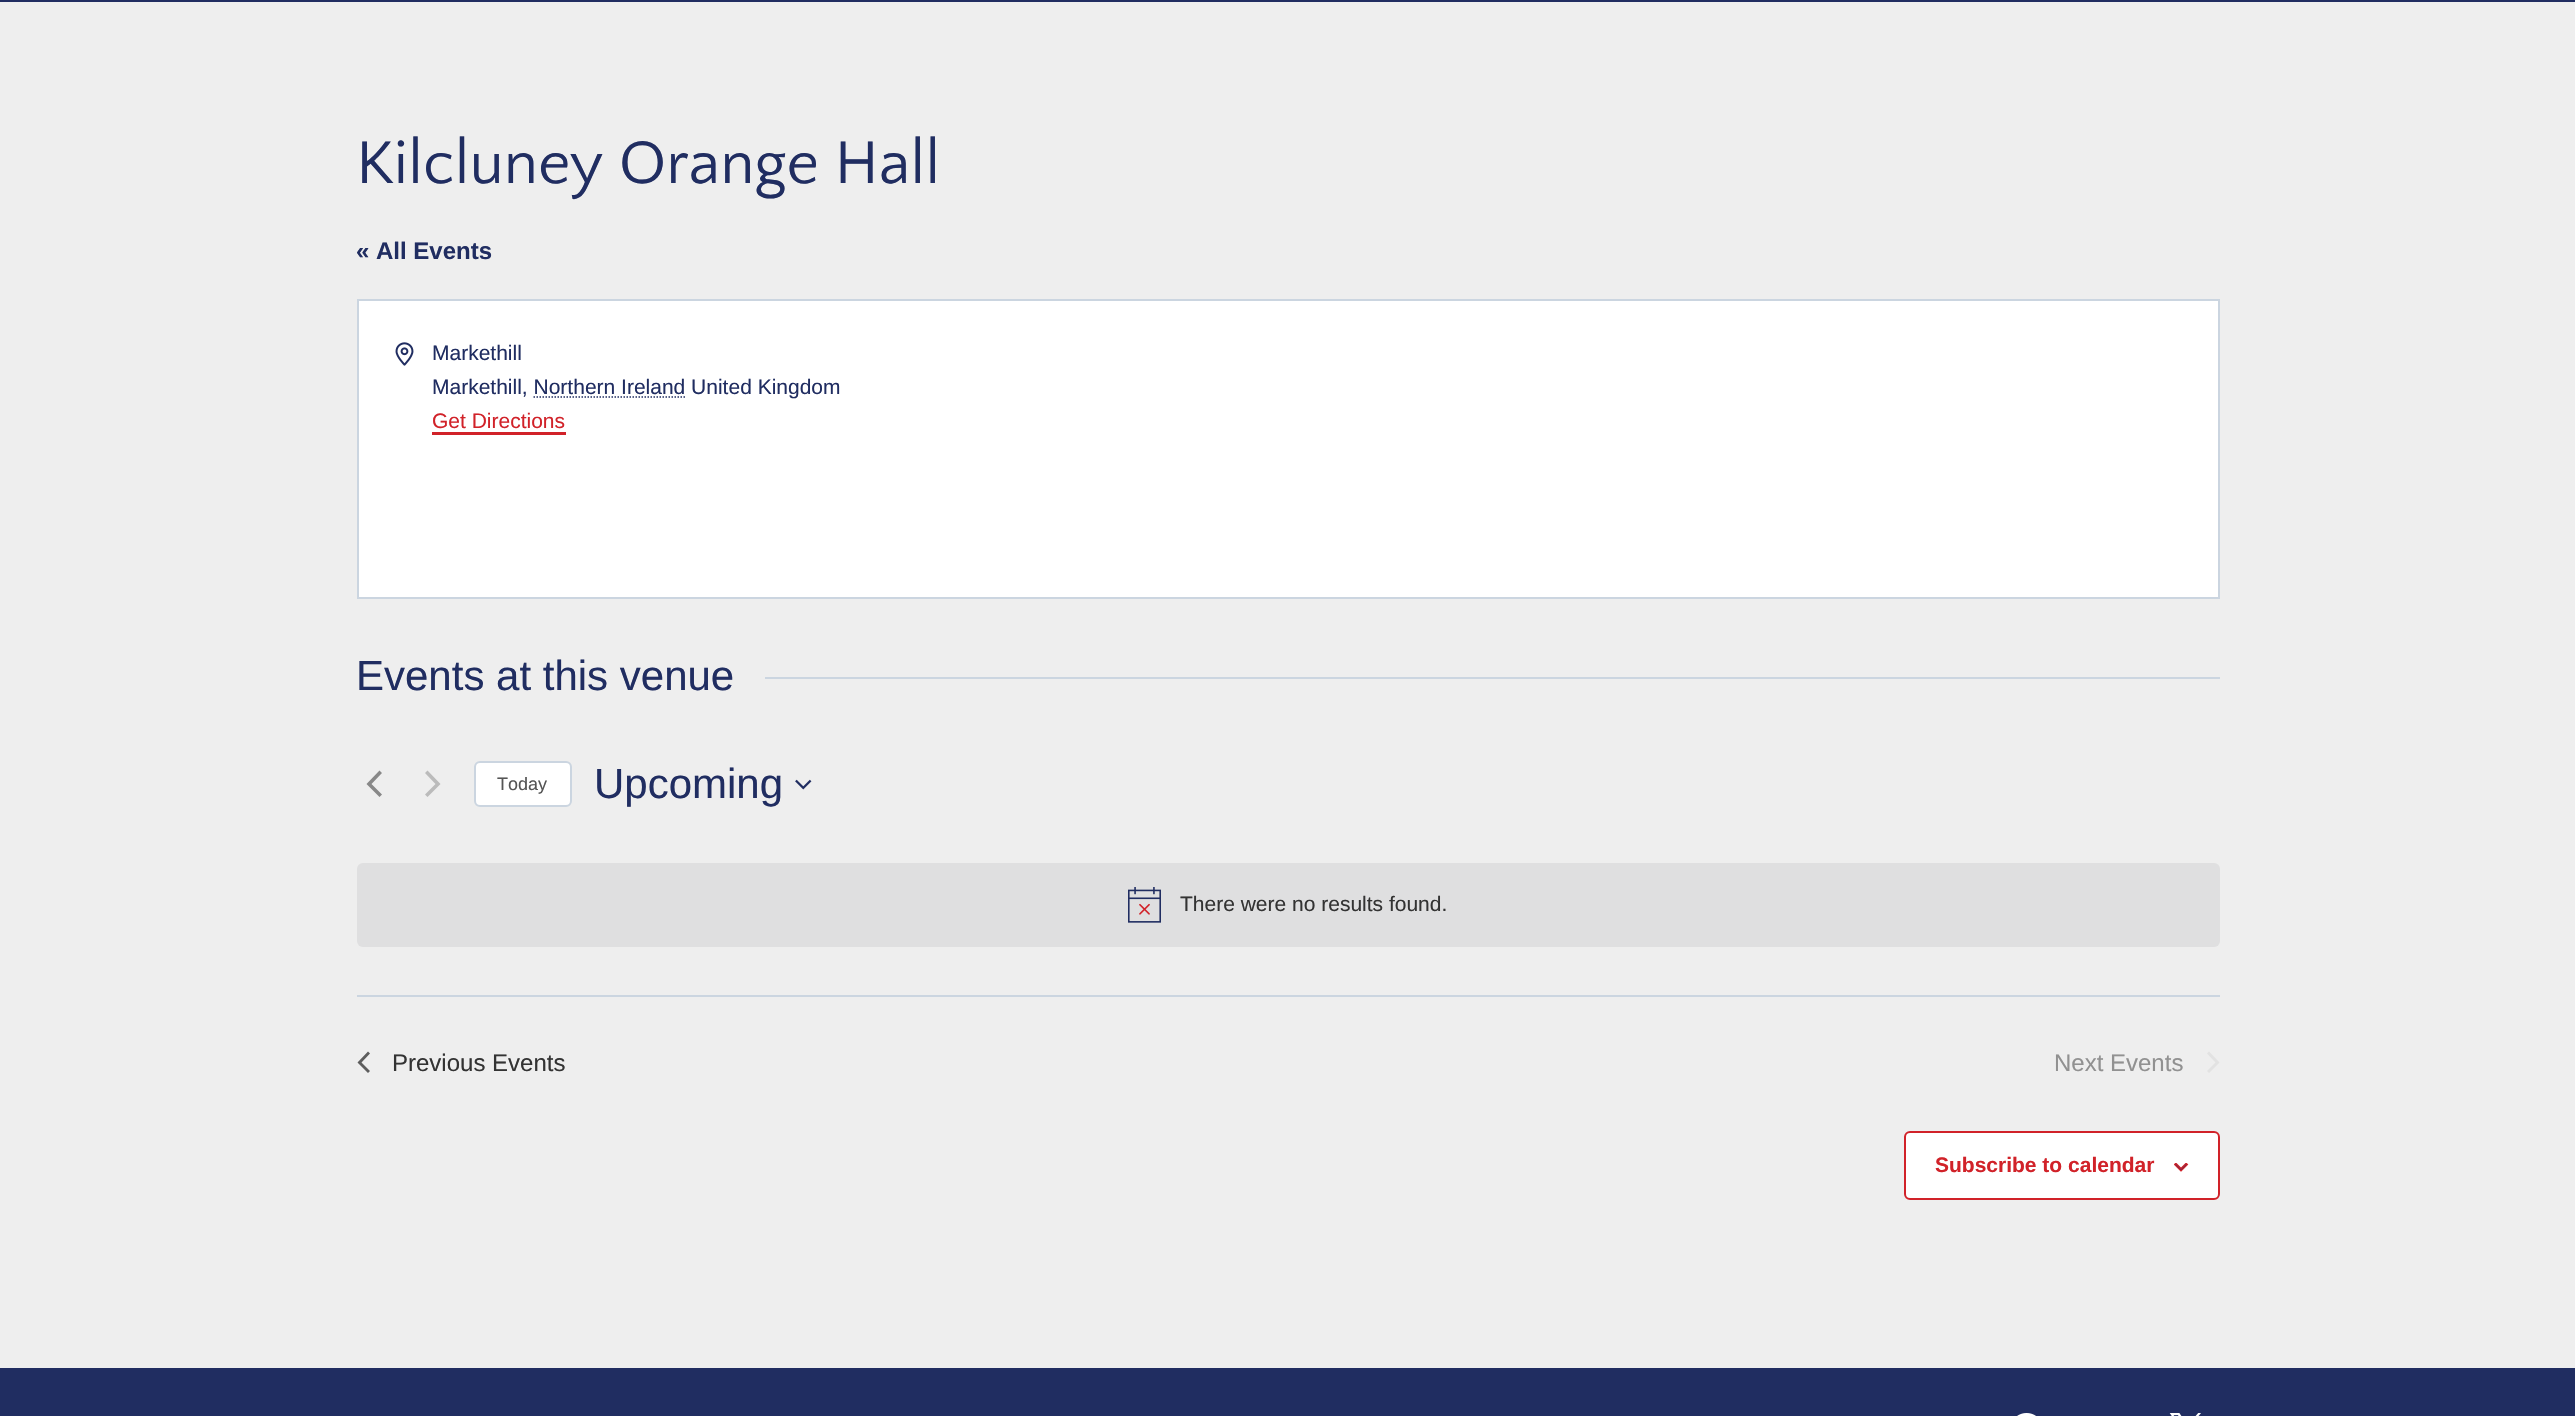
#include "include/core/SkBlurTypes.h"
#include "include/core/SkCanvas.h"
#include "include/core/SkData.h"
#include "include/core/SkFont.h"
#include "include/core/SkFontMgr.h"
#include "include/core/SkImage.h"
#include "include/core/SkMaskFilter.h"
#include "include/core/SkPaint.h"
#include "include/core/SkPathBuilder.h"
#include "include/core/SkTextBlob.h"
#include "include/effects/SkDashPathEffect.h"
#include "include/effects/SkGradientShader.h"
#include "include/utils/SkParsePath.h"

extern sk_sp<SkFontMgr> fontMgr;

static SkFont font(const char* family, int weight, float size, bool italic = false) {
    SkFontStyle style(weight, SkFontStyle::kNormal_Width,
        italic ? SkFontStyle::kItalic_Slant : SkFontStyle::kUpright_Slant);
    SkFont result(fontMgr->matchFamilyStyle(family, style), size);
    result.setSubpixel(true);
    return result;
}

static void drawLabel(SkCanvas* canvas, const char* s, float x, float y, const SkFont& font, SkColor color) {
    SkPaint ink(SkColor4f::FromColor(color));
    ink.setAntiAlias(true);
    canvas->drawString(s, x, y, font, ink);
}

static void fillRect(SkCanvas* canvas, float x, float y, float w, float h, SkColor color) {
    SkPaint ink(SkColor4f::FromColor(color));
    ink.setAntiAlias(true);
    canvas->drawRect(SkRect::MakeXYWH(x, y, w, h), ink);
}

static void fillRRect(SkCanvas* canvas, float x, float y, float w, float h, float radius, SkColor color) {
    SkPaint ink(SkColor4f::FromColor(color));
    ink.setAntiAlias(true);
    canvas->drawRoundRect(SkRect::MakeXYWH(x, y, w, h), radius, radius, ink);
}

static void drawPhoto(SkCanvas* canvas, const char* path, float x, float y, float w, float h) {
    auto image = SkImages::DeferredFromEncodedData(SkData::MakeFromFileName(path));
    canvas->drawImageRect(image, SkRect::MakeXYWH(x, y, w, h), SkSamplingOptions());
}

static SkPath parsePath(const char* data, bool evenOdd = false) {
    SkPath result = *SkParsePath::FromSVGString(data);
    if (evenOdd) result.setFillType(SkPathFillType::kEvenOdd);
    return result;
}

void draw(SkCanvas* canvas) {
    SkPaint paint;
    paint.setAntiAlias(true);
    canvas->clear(0xFFEEEEEE);
    fillRect(canvas, 0, 0, 2575, 2, 0xFF202D61);
    SkFont font1 = font("Quattrocento Sans", 400, 63);
    drawLabel(canvas, "Kilcluney Orange Hall", 356, 183, font1, 0xFF202D61);
    SkFont font2 = font("Liberation Sans", 700, 24);
    drawLabel(canvas, "« All Events", 356, 259, font2, 0xFF202D61);
    paint.setColor(0xFFFFFFFF);
    canvas->drawRect(SkRect::MakeXYWH(358, 300, 1861, 298), paint);
    paint.setStroke(true);
    paint.setStrokeWidth(2);
    paint.setColor(0xFFCBD5E0);
    canvas->drawRect(SkRect::MakeXYWH(358, 300, 1861, 298), paint);
    drawPhoto(canvas, "assets/img1.png", 395, 342, 19, 24);
    SkFont font3 = font("Liberation Sans", 400, 21);
    drawLabel(canvas, "Markethill", 432, 360, font3, 0xFF202D61);
    drawLabel(canvas, "Markethill, Northern Ireland United Kingdom", 432, 394, font3, 0xFF202D61);
    paint.setStrokeWidth(1.5f);
    paint.setColor(0xFF202D61);
    paint.setPathEffect(SkDashPathEffect::Make({{1.5f, 1.5f}}, 0));
    canvas->drawPath(parsePath("M533.5 397H685"), paint);
    paint.setPathEffect(nullptr);
    drawLabel(canvas, "Get Directions", 432, 428, font3, 0xFFD12229);
    fillRect(canvas, 432, 432, 134, 3, 0xFFD12229);
    SkFont font4 = font("Liberation Sans", 400, 42);
    drawLabel(canvas, "Events at this venue", 356, 690, font4, 0xFF202D61);
    fillRect(canvas, 765, 677, 1455, 2, 0xFFCBD5E0);
    paint.setStroke(false);
    paint.setColor(0xFF888888);
    canvas->drawPath(parsePath("M382 794.5L379.5 797L366.5 784L379.5 770.5L382 773L371.5 784Z"), paint);
    paint.setColor(0xFFBBBBBB);
    canvas->drawPath(parsePath("M425 773L427.5 770.5L440.5 784L427.5 797L425 794.5L435.5 784Z"), paint);
    paint.setColor(0xFFFFFFFF);
    canvas->drawRoundRect(SkRect::MakeXYWH(475, 762, 96, 44), 5, 5, paint);
    paint.setStroke(true);
    paint.setStrokeWidth(2);
    paint.setColor(0xFFCBD5E0);
    canvas->drawRoundRect(SkRect::MakeXYWH(475, 762, 96, 44), 5, 5, paint);
    SkFont font5 = font("Liberation Sans", 400, 18);
    drawLabel(canvas, "Today", 497, 790, font5, 0xFF555555);
    drawLabel(canvas, "Upcoming", 594, 798, font4, 0xFF202D61);
    drawPhoto(canvas, "assets/img2.png", 795, 779, 17, 11);
    fillRRect(canvas, 357, 863, 1863, 84, 6, 0xFFDFDFE0);
    drawPhoto(canvas, "assets/img3.png", 1128, 887, 33, 36);
    drawLabel(canvas, "There were no results found.", 1180, 911, font3, 0xFF333333);
    fillRect(canvas, 357, 995, 1863, 2, 0xFFCBD5E0);
    paint.setStroke(false);
    paint.setColor(0xFF5D5D5D);
    canvas->drawPath(parsePath("M370 1071L368 1073L357.5 1062.5L368 1051.5L370 1053.5L361.5 1062.5Z"), paint);
    SkFont font6 = font("Liberation Sans", 400, 24);
    drawLabel(canvas, "Previous Events", 392, 1071, font6, 0xFF333333);
    drawLabel(canvas, "Next Events", 2054, 1071, font6, 0xFF919191);
    paint.setColor(0xFFE2E2E2);
    canvas->drawPath(parsePath("M2207 1053.5L2209 1051.5L2219.5 1062.5L2209 1073L2207 1071L2215.5 1062.5Z"), paint);
    paint.setColor(0xFFFFFFFF);
    canvas->drawRoundRect(SkRect::MakeXYWH(1905, 1132, 314, 67), 5, 5, paint);
    paint.setStroke(true);
    paint.setColor(0xFFD12229);
    canvas->drawRoundRect(SkRect::MakeXYWH(1905, 1132, 314, 67), 5, 5, paint);
    SkFont font7 = font("Liberation Sans", 700, 21);
    drawLabel(canvas, "Subscribe to calendar", 1935, 1172, font7, 0xFFD12229);
    drawPhoto(canvas, "assets/img4.png", 2174, 1163, 15, 9);
    fillRect(canvas, 0, 1368, 2575, 48, 0xFF202D61);
    drawPhoto(canvas, "assets/img5.png", 2017, 1413, 19, 3);
    drawPhoto(canvas, "assets/img6.png", 2169, 1413, 32, 3);
}
